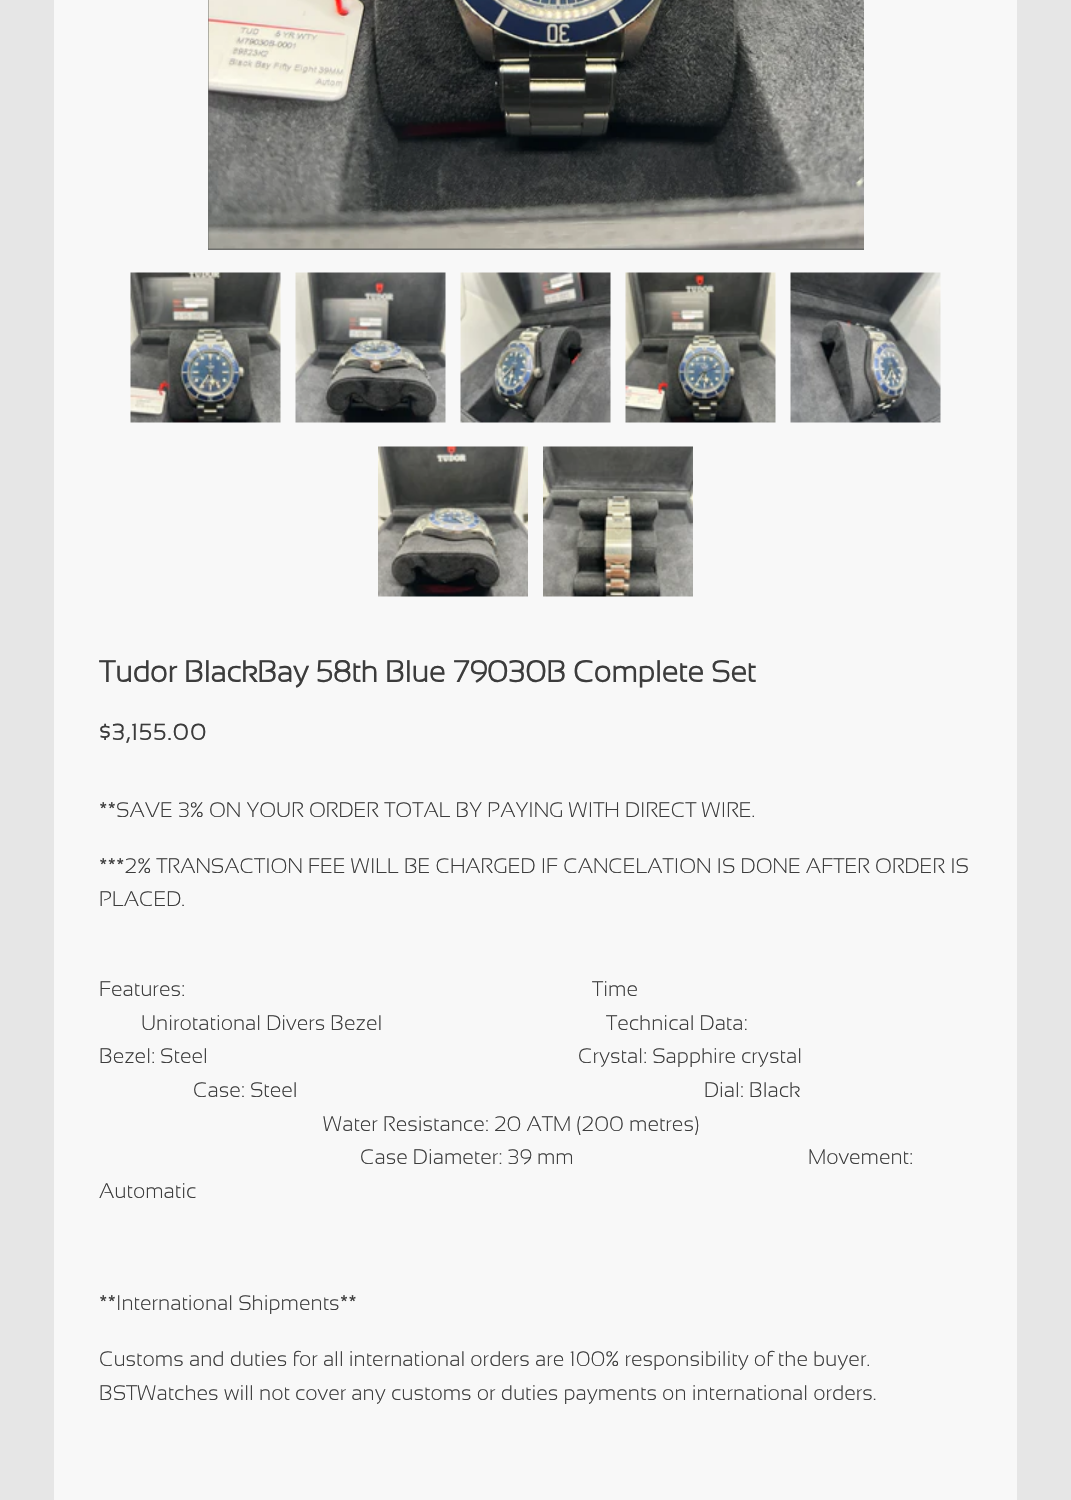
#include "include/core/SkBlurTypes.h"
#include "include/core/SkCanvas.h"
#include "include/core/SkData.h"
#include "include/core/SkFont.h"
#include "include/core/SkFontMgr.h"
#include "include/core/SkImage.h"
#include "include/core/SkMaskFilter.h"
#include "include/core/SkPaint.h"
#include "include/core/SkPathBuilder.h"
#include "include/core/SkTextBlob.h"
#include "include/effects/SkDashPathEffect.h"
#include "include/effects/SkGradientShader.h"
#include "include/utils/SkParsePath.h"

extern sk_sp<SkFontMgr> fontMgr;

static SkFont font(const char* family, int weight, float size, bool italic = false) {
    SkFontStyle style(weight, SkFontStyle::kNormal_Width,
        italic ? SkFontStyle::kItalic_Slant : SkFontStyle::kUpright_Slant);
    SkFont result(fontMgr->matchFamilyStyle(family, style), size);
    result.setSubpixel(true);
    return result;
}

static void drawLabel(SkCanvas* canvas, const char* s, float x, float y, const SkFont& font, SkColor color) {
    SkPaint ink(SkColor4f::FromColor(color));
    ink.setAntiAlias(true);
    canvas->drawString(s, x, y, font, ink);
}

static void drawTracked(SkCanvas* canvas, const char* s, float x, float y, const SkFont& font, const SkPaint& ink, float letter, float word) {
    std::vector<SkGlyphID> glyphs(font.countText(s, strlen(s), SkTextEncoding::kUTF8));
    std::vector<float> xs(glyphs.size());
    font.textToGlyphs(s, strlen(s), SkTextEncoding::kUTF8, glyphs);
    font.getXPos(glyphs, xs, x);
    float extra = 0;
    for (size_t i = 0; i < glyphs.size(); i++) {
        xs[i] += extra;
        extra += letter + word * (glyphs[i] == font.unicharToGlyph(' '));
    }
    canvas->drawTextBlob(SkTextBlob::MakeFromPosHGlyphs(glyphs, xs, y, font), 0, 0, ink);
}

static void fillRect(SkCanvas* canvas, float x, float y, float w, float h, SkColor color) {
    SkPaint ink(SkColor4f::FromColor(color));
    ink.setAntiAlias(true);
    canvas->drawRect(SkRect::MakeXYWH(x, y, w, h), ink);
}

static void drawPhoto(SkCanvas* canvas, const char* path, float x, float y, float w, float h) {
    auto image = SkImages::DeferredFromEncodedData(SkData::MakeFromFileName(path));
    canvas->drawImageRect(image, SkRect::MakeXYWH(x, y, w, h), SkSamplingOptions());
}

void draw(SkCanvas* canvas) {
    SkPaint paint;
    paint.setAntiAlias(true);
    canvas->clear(0xFFE6E6E6);
    fillRect(canvas, 54, 0, 963, 1500, 0xFFF8F8F8);
    fillRect(canvas, 208, 0, 656, 250, 0xFF6C6D6A);
    drawPhoto(canvas, "assets/img1.png", 208, 0, 656, 249);
    drawPhoto(canvas, "assets/img2.png", 130, 272, 151, 151);
    drawPhoto(canvas, "assets/img3.png", 295, 272, 151, 151);
    drawPhoto(canvas, "assets/img4.png", 460, 272, 151, 151);
    drawPhoto(canvas, "assets/img5.png", 625, 272, 151, 151);
    drawPhoto(canvas, "assets/img6.png", 790, 272, 151, 151);
    drawPhoto(canvas, "assets/img7.png", 378, 446, 150, 151);
    drawPhoto(canvas, "assets/img8.png", 543, 446, 150, 151);
    SkFont font1 = font("Sansation Light", 700, 30);
    drawLabel(canvas, "Tudor BlackBay 58th Blue 79030B Complete Set", 99, 682, font1, 0xFF3C3C3C);
    SkFont font2 = font("Sansation Light", 700, 22.5f);
    paint.setColor(0xFF3C3C3C);
    drawTracked(canvas, "$3,155.00", 99, 740, font2, paint, 1.5f, 0);
    SkFont font3 = font("Sansation Light", 300, 21);
    drawLabel(canvas, "**SAVE 3% ON YOUR ORDER TOTAL BY PAYING WITH DIRECT WIRE.", 99, 817, font3, 0xFF3C3C3C);
    drawLabel(canvas, "***2% TRANSACTION FEE WILL BE CHARGED IF CANCELATION IS DONE AFTER ORDER IS", 99, 873, font3, 0xFF3C3C3C);
    drawLabel(canvas, "PLACED.", 99, 906, font3, 0xFF3C3C3C);
    drawLabel(canvas, "Features:", 99, 996, font3, 0xFF3C3C3C);
    drawLabel(canvas, "Time", 592, 996, font3, 0xFF3C3C3C);
    drawLabel(canvas, "Unirotational Divers Bezel", 141, 1030, font3, 0xFF3C3C3C);
    drawLabel(canvas, "Technical Data:", 606, 1030, font3, 0xFF3C3C3C);
    drawLabel(canvas, "Bezel: Steel", 99, 1063, font3, 0xFF3C3C3C);
    drawLabel(canvas, "Crystal: Sapphire crystal", 578, 1063, font3, 0xFF3C3C3C);
    drawLabel(canvas, "Case: Steel", 193, 1097, font3, 0xFF3C3C3C);
    drawLabel(canvas, "Dial: Black", 704, 1097, font3, 0xFF3C3C3C);
    drawLabel(canvas, "Water Resistance: 20 ATM (200 metres)", 323, 1131, font3, 0xFF3C3C3C);
    drawLabel(canvas, "Case Diameter: 39 mm", 360, 1164, font3, 0xFF3C3C3C);
    drawLabel(canvas, "Movement:", 808, 1164, font3, 0xFF3C3C3C);
    drawLabel(canvas, "Automatic", 99, 1198, font3, 0xFF3C3C3C);
    drawLabel(canvas, "**International Shipments**", 99, 1310, font3, 0xFF3C3C3C);
    drawLabel(canvas, "Customs and duties for all international orders are 100% responsibility of the buyer.", 99, 1366, font3, 0xFF3C3C3C);
    drawLabel(canvas, "BSTWatches will not cover any customs or duties payments on international orders.", 99, 1400, font3, 0xFF3C3C3C);
}
